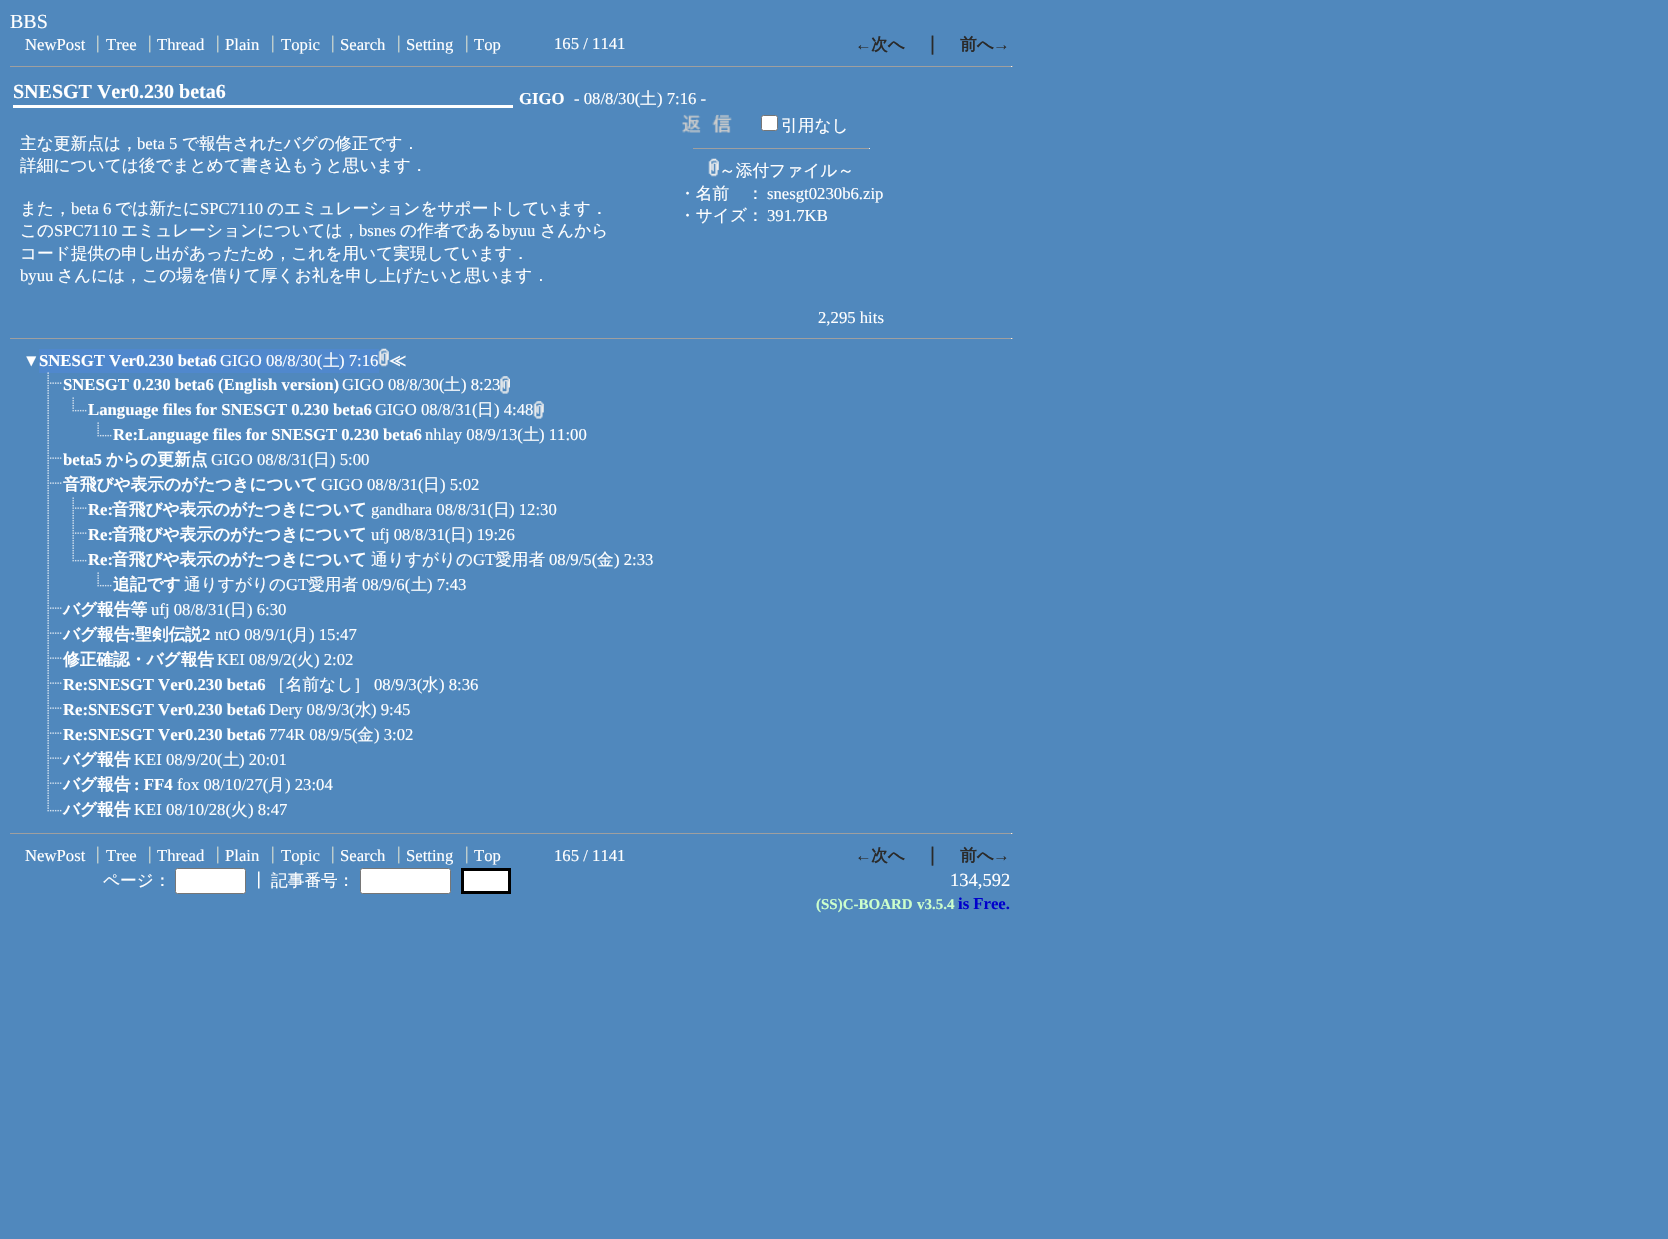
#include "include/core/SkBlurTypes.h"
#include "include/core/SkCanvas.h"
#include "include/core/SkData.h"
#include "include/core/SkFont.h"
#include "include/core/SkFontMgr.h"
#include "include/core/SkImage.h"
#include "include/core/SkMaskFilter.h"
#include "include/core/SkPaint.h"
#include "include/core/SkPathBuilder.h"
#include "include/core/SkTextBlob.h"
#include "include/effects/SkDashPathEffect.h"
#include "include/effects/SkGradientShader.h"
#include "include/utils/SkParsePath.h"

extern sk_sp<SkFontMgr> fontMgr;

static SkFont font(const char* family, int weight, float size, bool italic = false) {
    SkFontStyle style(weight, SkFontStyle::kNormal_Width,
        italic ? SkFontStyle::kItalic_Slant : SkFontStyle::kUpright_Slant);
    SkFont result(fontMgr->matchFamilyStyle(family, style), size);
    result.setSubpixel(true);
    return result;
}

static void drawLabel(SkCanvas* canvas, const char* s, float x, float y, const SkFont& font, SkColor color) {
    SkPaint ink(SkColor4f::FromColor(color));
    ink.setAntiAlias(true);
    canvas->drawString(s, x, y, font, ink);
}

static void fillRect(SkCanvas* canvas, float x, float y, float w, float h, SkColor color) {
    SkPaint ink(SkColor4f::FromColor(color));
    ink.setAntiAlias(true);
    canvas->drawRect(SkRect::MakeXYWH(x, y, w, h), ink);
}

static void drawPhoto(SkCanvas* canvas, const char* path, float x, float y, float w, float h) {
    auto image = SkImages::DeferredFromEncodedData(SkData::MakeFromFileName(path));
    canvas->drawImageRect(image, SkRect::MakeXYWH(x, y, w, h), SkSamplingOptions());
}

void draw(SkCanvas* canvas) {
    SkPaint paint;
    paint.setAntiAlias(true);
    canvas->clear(0xFF5088BD);
    SkFont font1 = font("Liberation Serif", 400, 20);
    drawLabel(canvas, "BBS", 10, 28, font1, 0xFFFFFFFF);
    SkFont font2 = font("Liberation Serif", 400, 16.7f);
    drawLabel(canvas, "NewPost", 25, 50, font2, 0xFFFFFFFF);
    SkFont font3 = font("WenQuanYi Zen Hei", 500, 16.7f);
    drawLabel(canvas, "┃", 89, 50, font3, 0xFFBBCCCC);
    drawLabel(canvas, "Tree", 106, 50, font2, 0xFFFFFFFF);
    drawLabel(canvas, "┃", 141, 50, font3, 0xFFBBCCCC);
    drawLabel(canvas, "Thread", 157, 50, font2, 0xFFFFFFFF);
    drawLabel(canvas, "┃", 209, 50, font3, 0xFFBBCCCC);
    drawLabel(canvas, "Plain", 225, 50, font2, 0xFFFFFFFF);
    drawLabel(canvas, "┃", 264, 50, font3, 0xFFBBCCCC);
    drawLabel(canvas, "Topic", 281, 50, font2, 0xFFFFFFFF);
    drawLabel(canvas, "┃", 324, 50, font3, 0xFFBBCCCC);
    drawLabel(canvas, "Search", 340, 50, font2, 0xFFFFFFFF);
    drawLabel(canvas, "┃", 390, 50, font3, 0xFFBBCCCC);
    drawLabel(canvas, "Setting", 406, 50, font2, 0xFFFFFFFF);
    drawLabel(canvas, "┃", 458, 50, font3, 0xFFBBCCCC);
    drawLabel(canvas, "Top", 474, 50, font2, 0xFFFFFFFF);
    drawLabel(canvas, "165 / 1141", 554, 49, font2, 0xFFFFFFFF);
    SkFont font4 = font("Liberation Serif", 700, 16.7f);
    drawLabel(canvas, "←", 855, 50, font4, 0xFF2A2A2A);
    SkFont font5 = font("WenQuanYi Zen Hei", 700, 16.7f);
    drawLabel(canvas, "次へ", 871, 50, font5, 0xFF2A2A2A);
    SkFont font6 = font("WenQuanYi Zen Hei", 700, 18.5f);
    drawLabel(canvas, "｜", 923, 50, font6, 0xFF2A2A2A);
    drawLabel(canvas, "前へ", 960, 50, font5, 0xFF2A2A2A);
    drawLabel(canvas, "→", 993, 50, font4, 0xFF2A2A2A);
    fillRect(canvas, 10, 66, 1003, 1, 0xFF9F9F9F);
    fillRect(canvas, 1011, 66, 1, 1, 0xFFEEEEEE);
    SkFont font7 = font("Liberation Serif", 700, 20);
    drawLabel(canvas, "SNESGT Ver0.230 beta6", 13, 98, font7, 0xFFFFFFFF);
    fillRect(canvas, 13, 105, 500, 3, 0xFFFFFFFF);
    drawLabel(canvas, "GIGO", 519, 104, font4, 0xFFFFFFFF);
    drawLabel(canvas, "- 08/8/30(", 574, 104, font2, 0xFFFFFFFF);
    drawLabel(canvas, "土", 640, 104, font3, 0xFFFFFFFF);
    drawLabel(canvas, ") 7:16 -", 657, 104, font2, 0xFFFFFFFF);
    drawLabel(canvas, "主な更新点は，", 20, 149, font3, 0xFFFFFFFF);
    drawLabel(canvas, "beta 5", 137, 149, font2, 0xFFFFFFFF);
    drawLabel(canvas, "で報告されたバグの修正です．", 182, 149, font3, 0xFFFFFFFF);
    drawLabel(canvas, "詳細については後でまとめて書き込もうと思います．", 20, 171, font3, 0xFFFFFFFF);
    drawLabel(canvas, "また，", 20, 214, font3, 0xFFFFFFFF);
    drawLabel(canvas, "beta 6", 71, 214, font2, 0xFFFFFFFF);
    drawLabel(canvas, "では新たに", 115, 214, font3, 0xFFFFFFFF);
    drawLabel(canvas, "SPC7110", 200, 214, font2, 0xFFFFFFFF);
    drawLabel(canvas, "のエミュレーションをサポートしています．", 267, 214, font3, 0xFFFFFFFF);
    drawLabel(canvas, "この", 20, 236, font3, 0xFFFFFFFF);
    drawLabel(canvas, "SPC7110", 54, 236, font2, 0xFFFFFFFF);
    drawLabel(canvas, "エミュレーションについては，", 121, 236, font3, 0xFFFFFFFF);
    drawLabel(canvas, "bsnes", 359, 236, font2, 0xFFFFFFFF);
    drawLabel(canvas, "の作者である", 400, 236, font3, 0xFFFFFFFF);
    drawLabel(canvas, "byuu", 502, 236, font2, 0xFFFFFFFF);
    drawLabel(canvas, "さんから", 540, 236, font3, 0xFFFFFFFF);
    drawLabel(canvas, "コード提供の申し出があったため，これを用いて実現しています．", 20, 259, font3, 0xFFFFFFFF);
    drawLabel(canvas, "byuu", 20, 281, font2, 0xFFFFFFFF);
    drawLabel(canvas, "さんには，この場を借りて厚くお礼を申し上げたいと思います．", 57, 281, font3, 0xFFFFFFFF);
    drawPhoto(canvas, "assets/img1.png", 682, 114, 50, 19);
    paint.setColor(0xFFFFFFFF);
    canvas->drawRoundRect(SkRect::MakeXYWH(761.5f, 115.5f, 16, 15), 2, 2, paint);
    paint.setStroke(true);
    paint.setStrokeWidth(1);
    paint.setColor(0xFF767676);
    canvas->drawRoundRect(SkRect::MakeXYWH(761.5f, 115.5f, 16, 15), 2, 2, paint);
    drawLabel(canvas, "引用なし", 781, 131, font3, 0xFFFFFFFF);
    fillRect(canvas, 693, 148, 177, 1, 0xFF9F9F9F);
    fillRect(canvas, 869, 148, 1, 1, 0xFFEEEEEE);
    drawPhoto(canvas, "assets/img2.png", 708, 158, 11, 19);
    drawLabel(canvas, "～添付ファイル～", 719, 176, font3, 0xFFFFFFFF);
    drawLabel(canvas, "・名前", 679, 199, font3, 0xFFFFFFFF);
    drawLabel(canvas, "：", 747, 199, font3, 0xFFFFFFFF);
    drawLabel(canvas, "snesgt0230b6.zip", 767, 199, font2, 0xFFFFFFFF);
    drawLabel(canvas, "・サイズ：", 679, 221, font3, 0xFFFFFFFF);
    drawLabel(canvas, "391.7KB", 767, 221, font2, 0xFFFFFFFF);
    drawLabel(canvas, "2,295 hits", 818, 323, font2, 0xFFFFFFFF);
    fillRect(canvas, 10, 338, 1003, 1, 0xFF9F9F9F);
    fillRect(canvas, 1011, 338, 1, 1, 0xFFEEEEEE);
    drawLabel(canvas, "▼", 23, 366, font2, 0xFFFFFFFF);
    fillRect(canvas, 39, 349, 340, 24, 0xFF5088CD);
    drawLabel(canvas, "SNESGT Ver0.230 beta6", 39, 366, font4, 0xFFFFFFFF);
    drawLabel(canvas, "GIGO 08/8/30(", 220, 366, font2, 0xFFFFFFFF);
    drawLabel(canvas, "土", 323, 366, font3, 0xFFFFFFFF);
    drawLabel(canvas, ") 7:16", 339, 366, font2, 0xFFFFFFFF);
    drawPhoto(canvas, "assets/img3.png", 378, 348, 11, 19);
    drawLabel(canvas, "≪", 389, 366, font5, 0xFFFFFFFF);
    drawPhoto(canvas, "assets/img4.png", 47, 372, 15, 25);
    drawLabel(canvas, "SNESGT 0.230 beta6 (English version)", 63, 390, font4, 0xFFFFFFFF);
    drawLabel(canvas, "GIGO 08/8/30(", 342, 390, font2, 0xFFFFFFFF);
    drawLabel(canvas, "土", 444, 390, font3, 0xFFFFFFFF);
    drawLabel(canvas, ") 8:23", 461, 390, font2, 0xFFFFFFFF);
    drawPhoto(canvas, "assets/img5.png", 500, 376, 10, 18);
    drawPhoto(canvas, "assets/img6.png", 47, 397, 2, 25);
    drawPhoto(canvas, "assets/img7.png", 72, 397, 15, 15);
    drawLabel(canvas, "Language files for SNESGT 0.230 beta6", 88, 415, font4, 0xFFFFFFFF);
    drawLabel(canvas, "GIGO 08/8/31(", 375, 415, font2, 0xFFFFFFFF);
    drawLabel(canvas, "日", 477, 415, font3, 0xFFFFFFFF);
    drawLabel(canvas, ") 4:48", 494, 415, font2, 0xFFFFFFFF);
    drawPhoto(canvas, "assets/img8.png", 533, 401, 11, 18);
    drawPhoto(canvas, "assets/img6.png", 47, 422, 2, 25);
    drawPhoto(canvas, "assets/img9.png", 97, 422, 15, 15);
    drawLabel(canvas, "Re:Language files for SNESGT 0.230 beta6", 113, 440, font4, 0xFFFFFFFF);
    drawLabel(canvas, "nhlay 08/9/13(", 425, 440, font2, 0xFFFFFFFF);
    drawLabel(canvas, "土", 523, 440, font3, 0xFFFFFFFF);
    drawLabel(canvas, ") 11:00", 539, 440, font2, 0xFFFFFFFF);
    drawPhoto(canvas, "assets/img10.png", 47, 447, 15, 25);
    drawLabel(canvas, "beta5", 63, 465, font4, 0xFFFFFFFF);
    drawLabel(canvas, "からの更新点", 106, 465, font5, 0xFFFFFFFF);
    drawLabel(canvas, "GIGO 08/8/31(", 211, 465, font2, 0xFFFFFFFF);
    drawLabel(canvas, "日", 313, 465, font3, 0xFFFFFFFF);
    drawLabel(canvas, ") 5:00", 330, 465, font2, 0xFFFFFFFF);
    drawPhoto(canvas, "assets/img10.png", 47, 472, 15, 25);
    drawLabel(canvas, "音飛びや表示のがたつきについて", 63, 490, font5, 0xFFFFFFFF);
    drawLabel(canvas, "GIGO 08/8/31(", 321, 490, font2, 0xFFFFFFFF);
    drawLabel(canvas, "日", 423, 490, font3, 0xFFFFFFFF);
    drawLabel(canvas, ") 5:02", 440, 490, font2, 0xFFFFFFFF);
    drawPhoto(canvas, "assets/img6.png", 47, 497, 2, 25);
    drawPhoto(canvas, "assets/img11.png", 72, 497, 15, 25);
    drawLabel(canvas, "Re:", 88, 515, font4, 0xFFFFFFFF);
    drawLabel(canvas, "音飛びや表示のがたつきについて", 112, 515, font5, 0xFFFFFFFF);
    drawLabel(canvas, "gandhara 08/8/31(", 371, 515, font2, 0xFFFFFFFF);
    drawLabel(canvas, "日", 493, 515, font3, 0xFFFFFFFF);
    drawLabel(canvas, ") 12:30", 509, 515, font2, 0xFFFFFFFF);
    drawPhoto(canvas, "assets/img6.png", 47, 522, 2, 25);
    drawPhoto(canvas, "assets/img11.png", 72, 522, 15, 25);
    drawLabel(canvas, "Re:", 88, 540, font4, 0xFFFFFFFF);
    drawLabel(canvas, "音飛びや表示のがたつきについて", 112, 540, font5, 0xFFFFFFFF);
    drawLabel(canvas, "ufj 08/8/31(", 371, 540, font2, 0xFFFFFFFF);
    drawLabel(canvas, "日", 450, 540, font3, 0xFFFFFFFF);
    drawLabel(canvas, ") 19:26", 467, 540, font2, 0xFFFFFFFF);
    drawPhoto(canvas, "assets/img6.png", 47, 547, 2, 25);
    drawPhoto(canvas, "assets/img7.png", 72, 547, 15, 15);
    drawLabel(canvas, "Re:", 88, 565, font4, 0xFFFFFFFF);
    drawLabel(canvas, "音飛びや表示のがたつきについて", 112, 565, font5, 0xFFFFFFFF);
    drawLabel(canvas, "通りすがりの", 371, 565, font3, 0xFFFFFFFF);
    drawLabel(canvas, "GT", 473, 565, font2, 0xFFFFFFFF);
    drawLabel(canvas, "愛用者", 495, 565, font3, 0xFFFFFFFF);
    drawLabel(canvas, "08/9/5(", 549, 565, font2, 0xFFFFFFFF);
    drawLabel(canvas, "金", 597, 565, font3, 0xFFFFFFFF);
    drawLabel(canvas, ") 2:33", 614, 565, font2, 0xFFFFFFFF);
    drawPhoto(canvas, "assets/img12.png", 47, 572, 2, 25);
    drawPhoto(canvas, "assets/img9.png", 97, 572, 15, 15);
    drawLabel(canvas, "追記です", 113, 590, font5, 0xFFFFFFFF);
    drawLabel(canvas, "通りすがりの", 184, 590, font3, 0xFFFFFFFF);
    drawLabel(canvas, "GT", 286, 590, font2, 0xFFFFFFFF);
    drawLabel(canvas, "愛用者", 308, 590, font3, 0xFFFFFFFF);
    drawLabel(canvas, "08/9/6(", 362, 590, font2, 0xFFFFFFFF);
    drawLabel(canvas, "土", 411, 590, font3, 0xFFFFFFFF);
    drawLabel(canvas, ") 7:43", 427, 590, font2, 0xFFFFFFFF);
    drawPhoto(canvas, "assets/img10.png", 47, 597, 15, 25);
    drawLabel(canvas, "バグ報告等", 63, 615, font5, 0xFFFFFFFF);
    drawLabel(canvas, "ufj 08/8/31(", 151, 615, font2, 0xFFFFFFFF);
    drawLabel(canvas, "日", 230, 615, font3, 0xFFFFFFFF);
    drawLabel(canvas, ") 6:30", 247, 615, font2, 0xFFFFFFFF);
    drawPhoto(canvas, "assets/img10.png", 47, 622, 15, 25);
    drawLabel(canvas, "バグ報告", 63, 640, font5, 0xFFFFFFFF);
    drawLabel(canvas, ":", 130, 640, font4, 0xFFFFFFFF);
    drawLabel(canvas, "聖剣伝説", 135, 640, font5, 0xFFFFFFFF);
    drawLabel(canvas, "2", 202, 640, font4, 0xFFFFFFFF);
    drawLabel(canvas, "ntO 08/9/1(", 215, 640, font2, 0xFFFFFFFF);
    drawLabel(canvas, "月", 292, 640, font3, 0xFFFFFFFF);
    drawLabel(canvas, ") 15:47", 309, 640, font2, 0xFFFFFFFF);
    drawPhoto(canvas, "assets/img10.png", 47, 647, 15, 25);
    drawLabel(canvas, "修正確認・バグ報告", 63, 665, font5, 0xFFFFFFFF);
    drawLabel(canvas, "KEI 08/9/2(", 217, 665, font2, 0xFFFFFFFF);
    drawLabel(canvas, "火", 297, 665, font3, 0xFFFFFFFF);
    drawLabel(canvas, ") 2:02", 314, 665, font2, 0xFFFFFFFF);
    drawPhoto(canvas, "assets/img10.png", 47, 672, 15, 25);
    drawLabel(canvas, "Re:SNESGT Ver0.230 beta6", 63, 690, font4, 0xFFFFFFFF);
    drawLabel(canvas, "［名前なし］", 269, 690, font3, 0xFFFFFFFF);
    drawLabel(canvas, "08/9/3(", 374, 690, font2, 0xFFFFFFFF);
    drawLabel(canvas, "水", 422, 690, font3, 0xFFFFFFFF);
    drawLabel(canvas, ") 8:36", 439, 690, font2, 0xFFFFFFFF);
    drawPhoto(canvas, "assets/img10.png", 47, 697, 15, 25);
    drawLabel(canvas, "Re:SNESGT Ver0.230 beta6", 63, 715, font4, 0xFFFFFFFF);
    drawLabel(canvas, "Dery 08/9/3(", 269, 715, font2, 0xFFFFFFFF);
    drawLabel(canvas, "水", 355, 715, font3, 0xFFFFFFFF);
    drawLabel(canvas, ") 9:45", 371, 715, font2, 0xFFFFFFFF);
    drawPhoto(canvas, "assets/img10.png", 47, 722, 15, 25);
    drawLabel(canvas, "Re:SNESGT Ver0.230 beta6", 63, 740, font4, 0xFFFFFFFF);
    drawLabel(canvas, "774R 08/9/5(", 269, 740, font2, 0xFFFFFFFF);
    drawLabel(canvas, "金", 357, 740, font3, 0xFFFFFFFF);
    drawLabel(canvas, ") 3:02", 374, 740, font2, 0xFFFFFFFF);
    drawPhoto(canvas, "assets/img10.png", 47, 747, 15, 25);
    drawLabel(canvas, "バグ報告", 63, 765, font5, 0xFFFFFFFF);
    drawLabel(canvas, "KEI 08/9/20(", 134, 765, font2, 0xFFFFFFFF);
    drawLabel(canvas, "土", 223, 765, font3, 0xFFFFFFFF);
    drawLabel(canvas, ") 20:01", 239, 765, font2, 0xFFFFFFFF);
    drawPhoto(canvas, "assets/img13.png", 47, 772, 15, 25);
    drawLabel(canvas, "バグ報告", 63, 790, font5, 0xFFFFFFFF);
    drawLabel(canvas, ": FF4", 134, 790, font4, 0xFFFFFFFF);
    drawLabel(canvas, "fox 08/10/27(", 177, 790, font2, 0xFFFFFFFF);
    drawLabel(canvas, "月", 268, 790, font3, 0xFFFFFFFF);
    drawLabel(canvas, ") 23:04", 285, 790, font2, 0xFFFFFFFF);
    drawPhoto(canvas, "assets/img9.png", 47, 797, 15, 15);
    drawLabel(canvas, "バグ報告", 63, 815, font5, 0xFFFFFFFF);
    drawLabel(canvas, "KEI 08/10/28(", 134, 815, font2, 0xFFFFFFFF);
    drawLabel(canvas, "火", 231, 815, font3, 0xFFFFFFFF);
    drawLabel(canvas, ") 8:47", 248, 815, font2, 0xFFFFFFFF);
    fillRect(canvas, 10, 833, 1003, 1, 0xFF9F9F9F);
    fillRect(canvas, 1011, 833, 1, 1, 0xFFEEEEEE);
    drawLabel(canvas, "NewPost", 25, 861, font2, 0xFFFFFFFF);
    drawLabel(canvas, "┃", 89, 861, font3, 0xFFBBCCCC);
    drawLabel(canvas, "Tree", 106, 861, font2, 0xFFFFFFFF);
    drawLabel(canvas, "┃", 141, 861, font3, 0xFFBBCCCC);
    drawLabel(canvas, "Thread", 157, 861, font2, 0xFFFFFFFF);
    drawLabel(canvas, "┃", 209, 861, font3, 0xFFBBCCCC);
    drawLabel(canvas, "Plain", 225, 861, font2, 0xFFFFFFFF);
    drawLabel(canvas, "┃", 264, 861, font3, 0xFFBBCCCC);
    drawLabel(canvas, "Topic", 281, 861, font2, 0xFFFFFFFF);
    drawLabel(canvas, "┃", 324, 861, font3, 0xFFBBCCCC);
    drawLabel(canvas, "Search", 340, 861, font2, 0xFFFFFFFF);
    drawLabel(canvas, "┃", 390, 861, font3, 0xFFBBCCCC);
    drawLabel(canvas, "Setting", 406, 861, font2, 0xFFFFFFFF);
    drawLabel(canvas, "┃", 458, 861, font3, 0xFFBBCCCC);
    drawLabel(canvas, "Top", 474, 861, font2, 0xFFFFFFFF);
    drawLabel(canvas, "165 / 1141", 554, 861, font2, 0xFFFFFFFF);
    drawLabel(canvas, "←", 855, 861, font4, 0xFF2A2A2A);
    drawLabel(canvas, "次へ", 871, 861, font5, 0xFF2A2A2A);
    drawLabel(canvas, "｜", 923, 861, font6, 0xFF2A2A2A);
    drawLabel(canvas, "前へ", 960, 861, font5, 0xFF2A2A2A);
    drawLabel(canvas, "→", 993, 861, font4, 0xFF2A2A2A);
    drawLabel(canvas, "ページ：", 103, 886, font3, 0xFFFFFFFF);
    paint.setStroke(false);
    paint.setColor(0xFFFFFFFF);
    canvas->drawRoundRect(SkRect::MakeXYWH(175.5f, 868.5f, 70, 25), 2, 2, paint);
    paint.setStroke(true);
    paint.setColor(0xFF767676);
    canvas->drawRoundRect(SkRect::MakeXYWH(175.5f, 868.5f, 70, 25), 2, 2, paint);
    drawLabel(canvas, "┃", 250, 886, font3, 0xFFFFFFFF);
    drawLabel(canvas, "記事番号：", 271, 886, font3, 0xFFFFFFFF);
    paint.setStroke(false);
    paint.setColor(0xFFFFFFFF);
    canvas->drawRoundRect(SkRect::MakeXYWH(360.5f, 868.5f, 90, 25), 2, 2, paint);
    paint.setStroke(true);
    paint.setColor(0xFF767676);
    canvas->drawRoundRect(SkRect::MakeXYWH(360.5f, 868.5f, 90, 25), 2, 2, paint);
    paint.setStroke(false);
    paint.setColor(0xFFFFFFFF);
    canvas->drawRect(SkRect::MakeXYWH(462.5f, 869.5f, 47, 23), paint);
    paint.setStroke(true);
    paint.setStrokeWidth(3);
    paint.setColor(0xFF000000);
    canvas->drawRect(SkRect::MakeXYWH(462.5f, 869.5f, 47, 23), paint);
    SkFont font8 = font("Liberation Serif", 400, 18.5f);
    drawLabel(canvas, "134,592", 950, 886, font8, 0xFFFFFFFF);
    SkFont font9 = font("Liberation Serif", 700, 15);
    drawLabel(canvas, "(SS)C-BOARD", 816, 909, font9, 0xFFCCFFCC);
    drawLabel(canvas, "v3.5.4", 917, 909, font9, 0xFFCCFFCC);
    drawLabel(canvas, "is Free.", 958, 909, font4, 0xFF0000CC);
}
